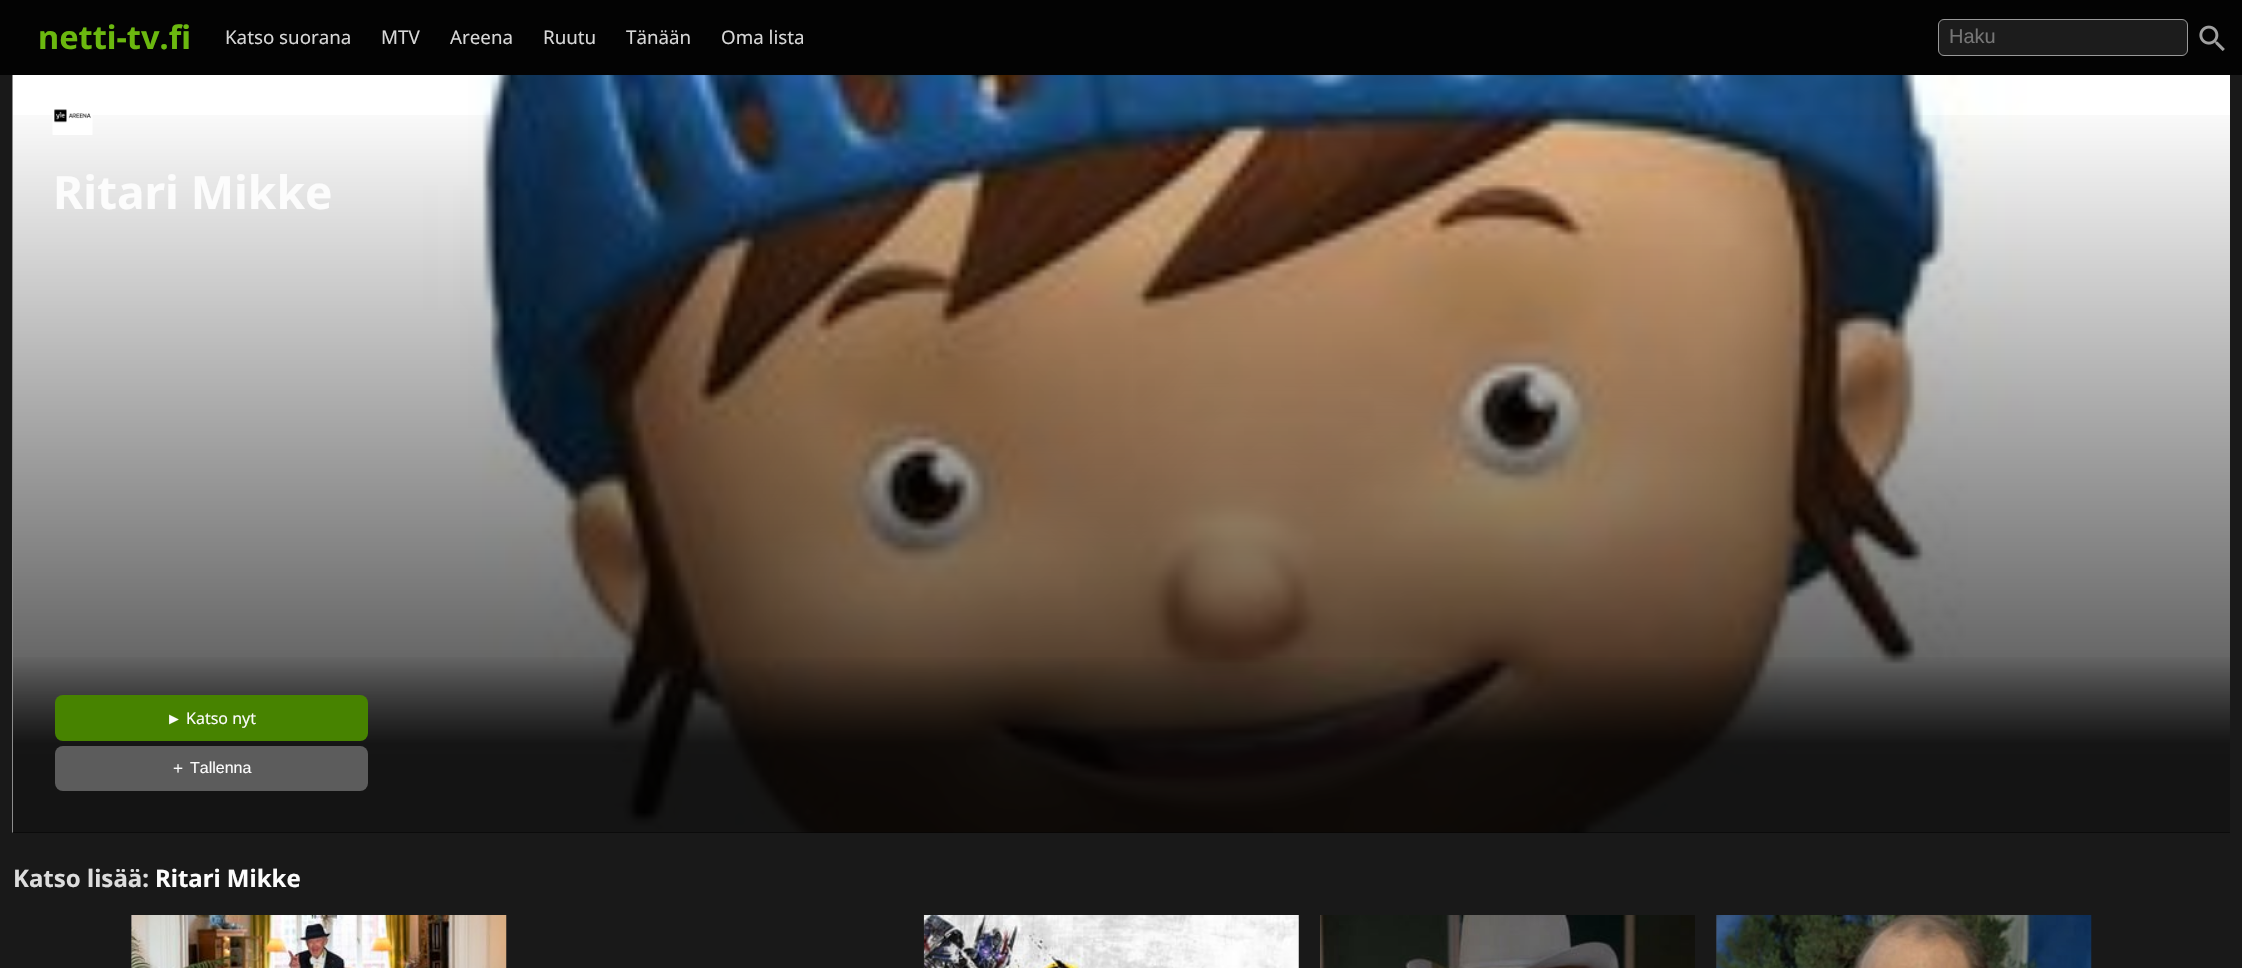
#include "include/core/SkBlurTypes.h"
#include "include/core/SkCanvas.h"
#include "include/core/SkData.h"
#include "include/core/SkFont.h"
#include "include/core/SkFontMgr.h"
#include "include/core/SkImage.h"
#include "include/core/SkMaskFilter.h"
#include "include/core/SkPaint.h"
#include "include/core/SkPathBuilder.h"
#include "include/core/SkTextBlob.h"
#include "include/effects/SkDashPathEffect.h"
#include "include/effects/SkGradientShader.h"
#include "include/utils/SkParsePath.h"

extern sk_sp<SkFontMgr> fontMgr;

static SkFont font(const char* family, int weight, float size, bool italic = false) {
    SkFontStyle style(weight, SkFontStyle::kNormal_Width,
        italic ? SkFontStyle::kItalic_Slant : SkFontStyle::kUpright_Slant);
    SkFont result(fontMgr->matchFamilyStyle(family, style), size);
    result.setSubpixel(true);
    return result;
}

static void drawLabel(SkCanvas* canvas, const char* s, float x, float y, const SkFont& font, SkColor color) {
    SkPaint ink(SkColor4f::FromColor(color));
    ink.setAntiAlias(true);
    canvas->drawString(s, x, y, font, ink);
}

static void fillRect(SkCanvas* canvas, float x, float y, float w, float h, SkColor color) {
    SkPaint ink(SkColor4f::FromColor(color));
    ink.setAntiAlias(true);
    canvas->drawRect(SkRect::MakeXYWH(x, y, w, h), ink);
}

static void fillRRect(SkCanvas* canvas, float x, float y, float w, float h, float radius, SkColor color) {
    SkPaint ink(SkColor4f::FromColor(color));
    ink.setAntiAlias(true);
    canvas->drawRoundRect(SkRect::MakeXYWH(x, y, w, h), radius, radius, ink);
}

static void drawPhoto(SkCanvas* canvas, const char* path, float x, float y, float w, float h) {
    auto image = SkImages::DeferredFromEncodedData(SkData::MakeFromFileName(path));
    canvas->drawImageRect(image, SkRect::MakeXYWH(x, y, w, h), SkSamplingOptions());
}

void draw(SkCanvas* canvas) {
    SkPaint paint;
    paint.setAntiAlias(true);
    canvas->clear(0xFF191919);
    fillRect(canvas, 0, 0, 2242, 75, 0xFF030303);
    SkFont font1 = font("Noto Sans", 700, 32.5f);
    drawLabel(canvas, "netti-tv.fi", 38, 49, font1, 0xFF6BB80F);
    SkFont font2 = font("Noto Sans", 400, 18.75f);
    drawLabel(canvas, "Katso suorana", 225, 44, font2, 0xFFD7D7D7);
    drawLabel(canvas, "MTV", 381, 44, font2, 0xFFD7D7D7);
    drawLabel(canvas, "Areena", 450, 44, font2, 0xFFD7D7D7);
    drawLabel(canvas, "Ruutu", 543, 44, font2, 0xFFD7D7D7);
    drawLabel(canvas, "Tänään", 626, 44, font2, 0xFFD7D7D7);
    drawLabel(canvas, "Oma lista", 721, 44, font2, 0xFFD7D7D7);
    paint.setColor(0xFF1C1C1C);
    canvas->drawRoundRect(SkRect::MakeXYWH(1938.5f, 19.5f, 249, 36), 5.5f, 5.5f, paint);
    paint.setStroke(true);
    paint.setStrokeWidth(1);
    paint.setColor(0xFF999999);
    canvas->drawRoundRect(SkRect::MakeXYWH(1938.5f, 19.5f, 249, 36), 5.5f, 5.5f, paint);
    SkFont font3 = font("Liberation Sans", 400, 20);
    drawLabel(canvas, "Haku", 1949, 43, font3, 0xFF757575);
    drawPhoto(canvas, "assets/img1.png", 2199, 25, 26, 26);
    drawPhoto(canvas, "assets/img2.png", 12, 75, 2218, 758);
    paint.setStroke(false);
    {
        const SkColor colors[] = {0xB3000000, 0x00000000};
        const float stops[] = {0.1f, 1};
        const SkPoint ends[] = {{1121, 833}, {1121, 95}};
        paint.setShader(SkGradientShader::MakeLinear(ends, colors, stops, 2, SkTileMode::kClamp));
        paint.setAlpha(255);
    }
    canvas->drawRect(SkRect::MakeXYWH(13, 115, 2217, 718), paint);
    drawPhoto(canvas, "assets/img3.png", 52, 109, 41, 26);
    SkFont font4 = font("Noto Sans", 700, 46);
    drawLabel(canvas, "Ritari Mikke", 53, 209, font4, 0xFFFCFCFC);
    {
        const SkColor colors[] = {0xBD000000, 0x00000000};
        const float stops[] = {0.5f, 1};
        const SkPoint ends[] = {{1121, 833}, {1121, 654}};
        paint.setShader(SkGradientShader::MakeLinear(ends, colors, stops, 2, SkTileMode::kClamp));
        paint.setAlpha(255);
    }
    canvas->drawRect(SkRect::MakeXYWH(13, 657, 2217, 176), paint);
    fillRRect(canvas, 55, 695, 313, 46, 8, 0xFF478300);
    SkFont font5 = font("Liberation Sans", 400, 16);
    drawLabel(canvas, "►", 166, 724, font5, 0xFFFCFCFC);
    SkFont font6 = font("Noto Sans", 400, 16);
    drawLabel(canvas, "Katso nyt", 186, 724, font6, 0xFFFCFCFC);
    fillRRect(canvas, 55, 746, 313, 45, 8, 0xFF5C5C5C);
    SkFont font7 = font("WenQuanYi Zen Hei", 500, 16);
    drawLabel(canvas, "＋", 170, 773, font7, 0xFFFCFCFC);
    drawLabel(canvas, "Tallenna", 190, 773, font5, 0xFFFCFCFC);
    SkFont font8 = font("Noto Sans", 700, 24);
    drawLabel(canvas, "Katso lisää:", 13, 887, font8, 0xFFDDDDDD);
    drawLabel(canvas, "Ritari Mikke", 155, 887, font8, 0xFFFCFCFC);
    fillRect(canvas, 131, 915, 1, 53, 0xFF2C2B2A);
    drawPhoto(canvas, "assets/img4.png", 131, 915, 376, 53);
    drawPhoto(canvas, "assets/img5.png", 923, 915, 376, 53);
    drawPhoto(canvas, "assets/img6.png", 1320, 915, 375, 53);
    fillRect(canvas, 1716, 915, 1, 53, 0xFF2C2B2A);
    drawPhoto(canvas, "assets/img7.png", 1716, 915, 376, 53);
}
